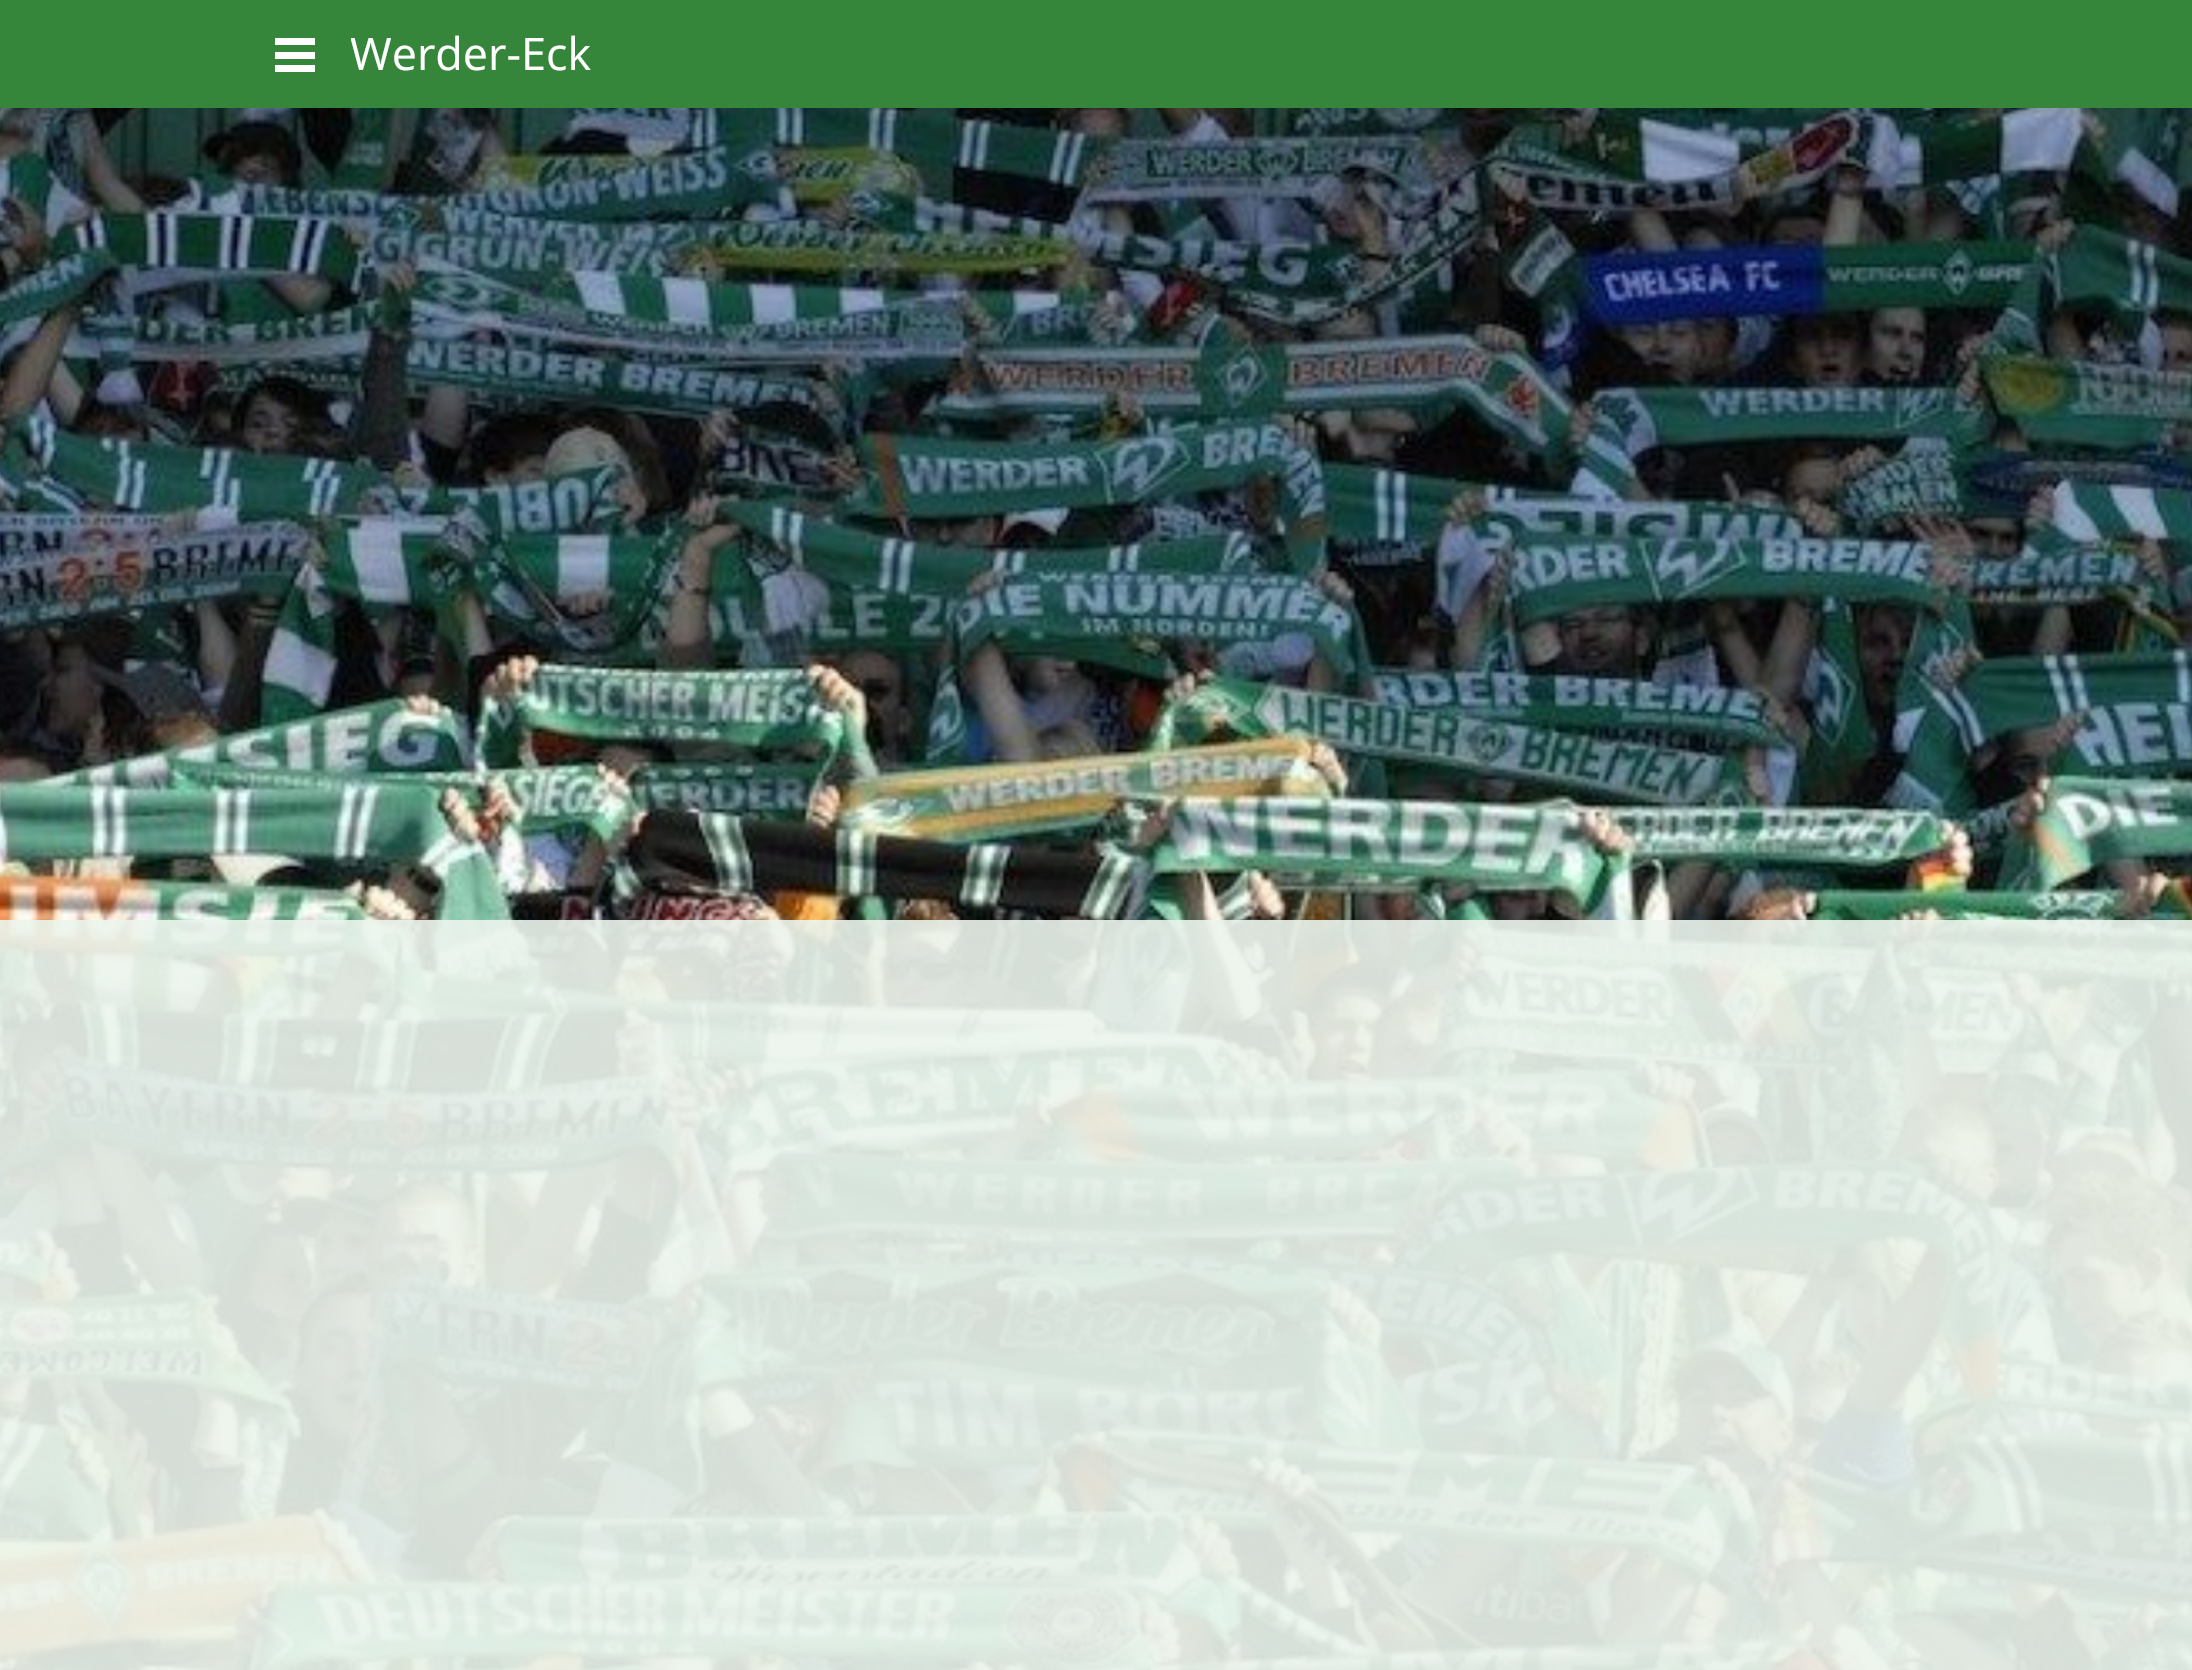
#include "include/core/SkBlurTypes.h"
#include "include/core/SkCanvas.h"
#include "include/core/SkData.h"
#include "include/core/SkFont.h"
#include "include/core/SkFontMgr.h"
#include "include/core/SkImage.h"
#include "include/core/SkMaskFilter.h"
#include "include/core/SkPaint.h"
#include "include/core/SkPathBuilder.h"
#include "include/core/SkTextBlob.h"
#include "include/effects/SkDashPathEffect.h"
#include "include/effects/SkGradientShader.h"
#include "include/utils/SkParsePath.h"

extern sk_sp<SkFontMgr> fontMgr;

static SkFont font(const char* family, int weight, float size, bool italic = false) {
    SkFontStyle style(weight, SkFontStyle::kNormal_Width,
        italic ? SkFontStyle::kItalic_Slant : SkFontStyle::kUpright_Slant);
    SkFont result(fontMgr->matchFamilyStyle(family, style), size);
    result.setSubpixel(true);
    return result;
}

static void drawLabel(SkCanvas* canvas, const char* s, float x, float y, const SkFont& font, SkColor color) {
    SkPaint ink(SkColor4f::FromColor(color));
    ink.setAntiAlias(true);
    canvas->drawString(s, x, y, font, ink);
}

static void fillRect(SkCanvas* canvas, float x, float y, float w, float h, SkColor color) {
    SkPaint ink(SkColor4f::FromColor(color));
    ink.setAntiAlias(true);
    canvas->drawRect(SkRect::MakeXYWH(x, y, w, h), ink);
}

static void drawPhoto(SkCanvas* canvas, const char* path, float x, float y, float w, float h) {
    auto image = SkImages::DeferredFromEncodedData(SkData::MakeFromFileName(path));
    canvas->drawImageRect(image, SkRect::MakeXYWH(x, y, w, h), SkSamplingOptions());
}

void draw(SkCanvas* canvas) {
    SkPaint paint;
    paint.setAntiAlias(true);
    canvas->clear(0xFFFFFFFF);
    fillRect(canvas, 0, 0, 2192, 108, 0xFF35863A);
    fillRect(canvas, 275, 38, 40, 7, 0xFFFFFFFF);
    fillRect(canvas, 275, 52, 40, 7, 0xFFFFFFFF);
    fillRect(canvas, 275, 65, 40, 7, 0xFFFFFFFF);
    canvas->save();
    canvas->clipRect(SkRect::MakeXYWH(351, 0, 248, 108));
    SkFont font1 = font("Open Sans", 400, 45);
    drawLabel(canvas, "Werder-Eck", 350, 70, font1, 0xFFFFFFFF);
    canvas->restore();
    drawPhoto(canvas, "assets/img1.png", 0, 108, 2192, 1562);
    fillRect(canvas, 0, 920, 2192, 750, 0xE6EBF4EC);
}
